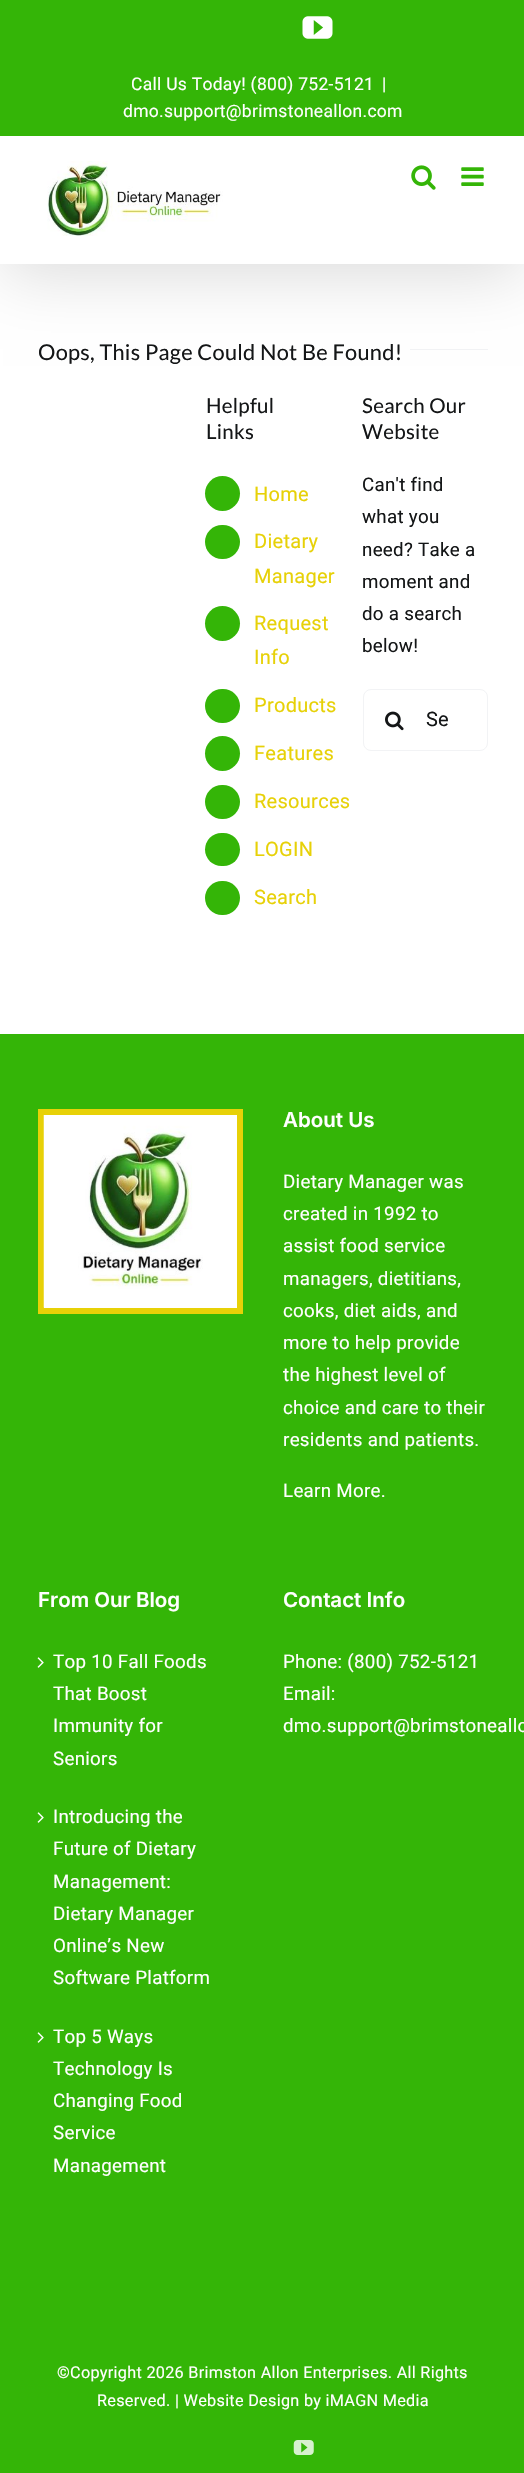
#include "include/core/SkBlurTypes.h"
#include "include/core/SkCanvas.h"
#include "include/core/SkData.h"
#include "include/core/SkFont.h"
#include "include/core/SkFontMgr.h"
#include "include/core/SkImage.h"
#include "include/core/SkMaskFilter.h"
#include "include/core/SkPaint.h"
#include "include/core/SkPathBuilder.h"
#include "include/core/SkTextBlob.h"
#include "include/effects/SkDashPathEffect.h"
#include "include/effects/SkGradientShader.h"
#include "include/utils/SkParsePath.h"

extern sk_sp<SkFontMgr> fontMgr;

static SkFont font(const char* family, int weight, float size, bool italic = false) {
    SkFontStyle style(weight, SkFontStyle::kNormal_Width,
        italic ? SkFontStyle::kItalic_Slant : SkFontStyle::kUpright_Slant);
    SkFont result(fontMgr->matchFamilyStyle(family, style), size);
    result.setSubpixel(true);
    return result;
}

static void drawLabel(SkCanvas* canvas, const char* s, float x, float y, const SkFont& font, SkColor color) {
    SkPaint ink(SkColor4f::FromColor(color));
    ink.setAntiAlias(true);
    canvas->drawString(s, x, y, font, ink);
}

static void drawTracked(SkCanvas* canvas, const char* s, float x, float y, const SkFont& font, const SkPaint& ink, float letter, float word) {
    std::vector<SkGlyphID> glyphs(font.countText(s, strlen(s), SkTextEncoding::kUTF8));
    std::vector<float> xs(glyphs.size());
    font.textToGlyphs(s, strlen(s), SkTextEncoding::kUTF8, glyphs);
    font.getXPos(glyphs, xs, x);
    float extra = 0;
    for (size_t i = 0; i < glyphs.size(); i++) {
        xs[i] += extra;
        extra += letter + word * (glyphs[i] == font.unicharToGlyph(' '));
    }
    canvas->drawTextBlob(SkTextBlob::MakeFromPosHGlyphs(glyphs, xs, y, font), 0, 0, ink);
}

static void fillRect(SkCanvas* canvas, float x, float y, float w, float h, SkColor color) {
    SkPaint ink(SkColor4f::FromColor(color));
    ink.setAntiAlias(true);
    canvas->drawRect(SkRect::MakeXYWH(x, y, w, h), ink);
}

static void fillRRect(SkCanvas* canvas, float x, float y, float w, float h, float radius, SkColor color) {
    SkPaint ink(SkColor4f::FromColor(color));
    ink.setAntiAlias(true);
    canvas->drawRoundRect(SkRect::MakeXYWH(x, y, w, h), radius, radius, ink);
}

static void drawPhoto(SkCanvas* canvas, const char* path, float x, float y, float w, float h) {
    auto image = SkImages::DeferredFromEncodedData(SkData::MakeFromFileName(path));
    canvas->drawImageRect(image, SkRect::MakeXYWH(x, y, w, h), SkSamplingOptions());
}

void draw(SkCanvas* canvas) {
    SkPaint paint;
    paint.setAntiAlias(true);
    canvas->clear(0xFFFFFFFF);
    fillRect(canvas, 410, 349, 78, 1, 0xFFF2F3F5);
    paint.setColor(0x24000000);
    paint.setMaskFilter(SkMaskFilter::MakeBlur(kNormal_SkBlurStyle, 31));
    canvas->drawRect(SkRect::MakeXYWH(3, 15, 520, 259), paint);
    paint.setMaskFilter(nullptr);
    fillRect(canvas, 0, 0, 524, 136, 0xFF34B507);
    drawPhoto(canvas, "assets/img1.png", 302, 16, 31, 23);
    SkFont font1 = font("Roboto", 400, 17.5f);
    paint.setColor(0xFFFFFFFF);
    drawTracked(canvas, "Call Us Today! (800) 752-5121", 131, 90, font1, paint, 0.28f, 0);
    drawTracked(canvas, "|", 382, 90, font1, paint, 0.28f, 0);
    drawTracked(canvas, "dmo.support@brimstoneallon.com", 123, 117, font1, paint, 0.28f, 0);
    fillRect(canvas, 0, 136, 524, 128, 0xFFFFFFFF);
    drawPhoto(canvas, "assets/img2.png", 47, 161, 176, 75);
    drawPhoto(canvas, "assets/img3.png", 411, 165, 25, 25);
    drawPhoto(canvas, "assets/img4.png", 461, 167, 23, 19);
    SkFont font2 = font("Lato", 400, 21.75f);
    paint.setColor(0xFF141617);
    drawTracked(canvas, "Oops, This Page Could Not Be Found!", 38, 360, font2, paint, 0.28f, 0);
    SkFont font3 = font("Lato", 400, 20.5f);
    drawTracked(canvas, "Helpful", 206, 413, font3, paint, 0.28f, 0);
    drawTracked(canvas, "Links", 206, 439, font3, paint, 0.28f, 0);
    paint.setColor(0xFF34B507);
    canvas->drawCircle(222.5f, 493.5f, 17.5f, paint);
    SkFont font4 = font("Roboto", 400, 20);
    paint.setColor(0xFFE7D107);
    drawTracked(canvas, "Home", 254, 501, font4, paint, 0.28f, 0);
    fillRRect(canvas, 205, 525, 35, 34, 17, 0xFF34B507);
    drawTracked(canvas, "Dietary", 254, 548, font4, paint, 0.28f, 0);
    drawTracked(canvas, "Manager", 254, 583, font4, paint, 0.28f, 0);
    paint.setColor(0xFF34B507);
    canvas->drawCircle(222.5f, 623.5f, 17.5f, paint);
    paint.setColor(0xFFE7D107);
    drawTracked(canvas, "Request", 254, 630, font4, paint, 0.28f, 0);
    drawTracked(canvas, "Info", 254, 664, font4, paint, 0.28f, 0);
    fillRRect(canvas, 205, 689, 35, 34, 17, 0xFF34B507);
    drawTracked(canvas, "Products", 254, 712, font4, paint, 0.28f, 0);
    paint.setColor(0xFF34B507);
    canvas->drawCircle(222.5f, 753.5f, 17.5f, paint);
    paint.setColor(0xFFE7D107);
    drawTracked(canvas, "Features", 254, 760, font4, paint, 0.28f, 0);
    fillRRect(canvas, 205, 785, 35, 34, 17, 0xFF34B507);
    drawTracked(canvas, "Resources", 254, 808, font4, paint, 0.28f, 0);
    fillRRect(canvas, 205, 833, 35, 33, 16.5f, 0xFF34B507);
    drawTracked(canvas, "LOGIN", 254, 856, font4, paint, 0.28f, 0);
    fillRRect(canvas, 205, 881, 35, 34, 17, 0xFF34B507);
    drawTracked(canvas, "Search", 254, 904, font4, paint, 0.28f, 0);
    paint.setColor(0xFF141617);
    drawTracked(canvas, "Search Our", 362, 413, font3, paint, 0.28f, 0);
    drawTracked(canvas, "Website", 362, 439, font3, paint, 0.28f, 0);
    SkFont font5 = font("Roboto", 400, 18.75f);
    drawTracked(canvas, "Can't find", 362, 491, font5, paint, 0.28f, 0);
    drawTracked(canvas, "what you", 362, 523, font5, paint, 0.28f, 0);
    drawTracked(canvas, "need? Take a", 362, 556, font5, paint, 0.28f, 0);
    drawTracked(canvas, "moment and", 362, 588, font5, paint, 0.28f, 0);
    drawTracked(canvas, "do a search", 362, 620, font5, paint, 0.28f, 0);
    drawTracked(canvas, "below!", 362, 652, font5, paint, 0.28f, 0);
    paint.setStroke(true);
    paint.setStrokeWidth(1);
    paint.setColor(0xFFF2F3F5);
    canvas->drawRoundRect(SkRect::MakeXYWH(363.5f, 689.5f, 124, 61), 7.5f, 7.5f, paint);
    drawPhoto(canvas, "assets/img5.png", 385, 711, 19, 20);
    drawLabel(canvas, "Se", 426, 726, font4, 0xFF141617);
    fillRect(canvas, 0, 1034, 524, 1439, 0xFF34B507);
    paint.setStroke(false);
    paint.setColor(0xFFFFFFFF);
    canvas->drawRect(SkRect::MakeXYWH(41, 1112, 199, 199), paint);
    paint.setStroke(true);
    paint.setStrokeWidth(6);
    paint.setColor(0xFFE7D107);
    canvas->drawRect(SkRect::MakeXYWH(41, 1112, 199, 199), paint);
    drawPhoto(canvas, "assets/img6.png", 43, 1115, 160, 193);
    SkFont font6 = font("Inter", 600, 20.5f);
    drawLabel(canvas, "About Us", 283, 1127, font6, 0xFFFFFFFF);
    paint.setStroke(false);
    paint.setColor(0xFFFFFFFF);
    drawTracked(canvas, "Dietary Manager was", 283, 1188, font5, paint, 0.28f, 0);
    drawTracked(canvas, "created in 1992 to", 283, 1220, font5, paint, 0.28f, 0);
    drawTracked(canvas, "assist food service", 283, 1252, font5, paint, 0.28f, 0);
    drawTracked(canvas, "managers, dietitians,", 283, 1285, font5, paint, 0.28f, 0);
    drawTracked(canvas, "cooks, diet aids, and", 283, 1317, font5, paint, 0.28f, 0);
    drawTracked(canvas, "more to help provide", 283, 1349, font5, paint, 0.28f, 0);
    drawTracked(canvas, "the highest level of", 283, 1381, font5, paint, 0.28f, 0);
    drawTracked(canvas, "choice and care to their", 283, 1414, font5, paint, 0.28f, 0);
    drawTracked(canvas, "residents and patients.", 283, 1446, font5, paint, 0.28f, 0);
    drawTracked(canvas, "Learn More.", 283, 1497, font5, paint, 0.28f, 0);
    drawLabel(canvas, "From Our Blog", 38, 1607, font6, 0xFFFFFFFF);
    drawPhoto(canvas, "assets/img7.png", 37, 1657, 7, 11);
    drawTracked(canvas, "Top 10 Fall Foods", 53, 1668, font5, paint, 0.28f, 0);
    drawTracked(canvas, "That Boost", 53, 1700, font5, paint, 0.28f, 0);
    drawTracked(canvas, "Immunity for", 53, 1732, font5, paint, 0.28f, 0);
    drawTracked(canvas, "Seniors", 53, 1765, font5, paint, 0.28f, 0);
    drawPhoto(canvas, "assets/img7.png", 37, 1812, 7, 11);
    drawTracked(canvas, "Introducing the", 53, 1823, font5, paint, 0.28f, 0);
    drawTracked(canvas, "Future of Dietary", 53, 1855, font5, paint, 0.28f, 0);
    drawTracked(canvas, "Management:", 53, 1888, font5, paint, 0.28f, 0);
    drawTracked(canvas, "Dietary Manager", 53, 1920, font5, paint, 0.28f, 0);
    drawTracked(canvas, "Online’s New", 53, 1952, font5, paint, 0.28f, 0);
    drawTracked(canvas, "Software Platform", 53, 1984, font5, paint, 0.28f, 0);
    drawPhoto(canvas, "assets/img7.png", 37, 2032, 7, 11);
    drawTracked(canvas, "Top 5 Ways", 53, 2043, font5, paint, 0.28f, 0);
    drawTracked(canvas, "Technology Is", 53, 2075, font5, paint, 0.28f, 0);
    drawTracked(canvas, "Changing Food", 53, 2107, font5, paint, 0.28f, 0);
    drawTracked(canvas, "Service", 53, 2139, font5, paint, 0.28f, 0);
    drawTracked(canvas, "Management", 53, 2172, font5, paint, 0.28f, 0);
    drawLabel(canvas, "Contact Info", 283, 1607, font6, 0xFFFFFFFF);
    drawTracked(canvas, "Phone: (800) 752-5121", 283, 1668, font5, paint, 0.28f, 0);
    drawTracked(canvas, "Email:", 283, 1700, font5, paint, 0.28f, 0);
    drawTracked(canvas, "dmo.support@brimstoneallo", 283, 1732, font5, paint, 0.28f, 0);
    SkFont font7 = font("Roboto", 400, 16.25f);
    drawTracked(canvas, "©Copyright 2026 Brimston Allon Enterprises. All Rights", 57, 2378, font7, paint, 0.28f, 0);
    drawTracked(canvas, "Reserved. | Website Design by iMAGN Media", 97, 2406, font7, paint, 0.28f, 0);
    drawPhoto(canvas, "assets/img8.png", 293, 2440, 21, 15);
}
